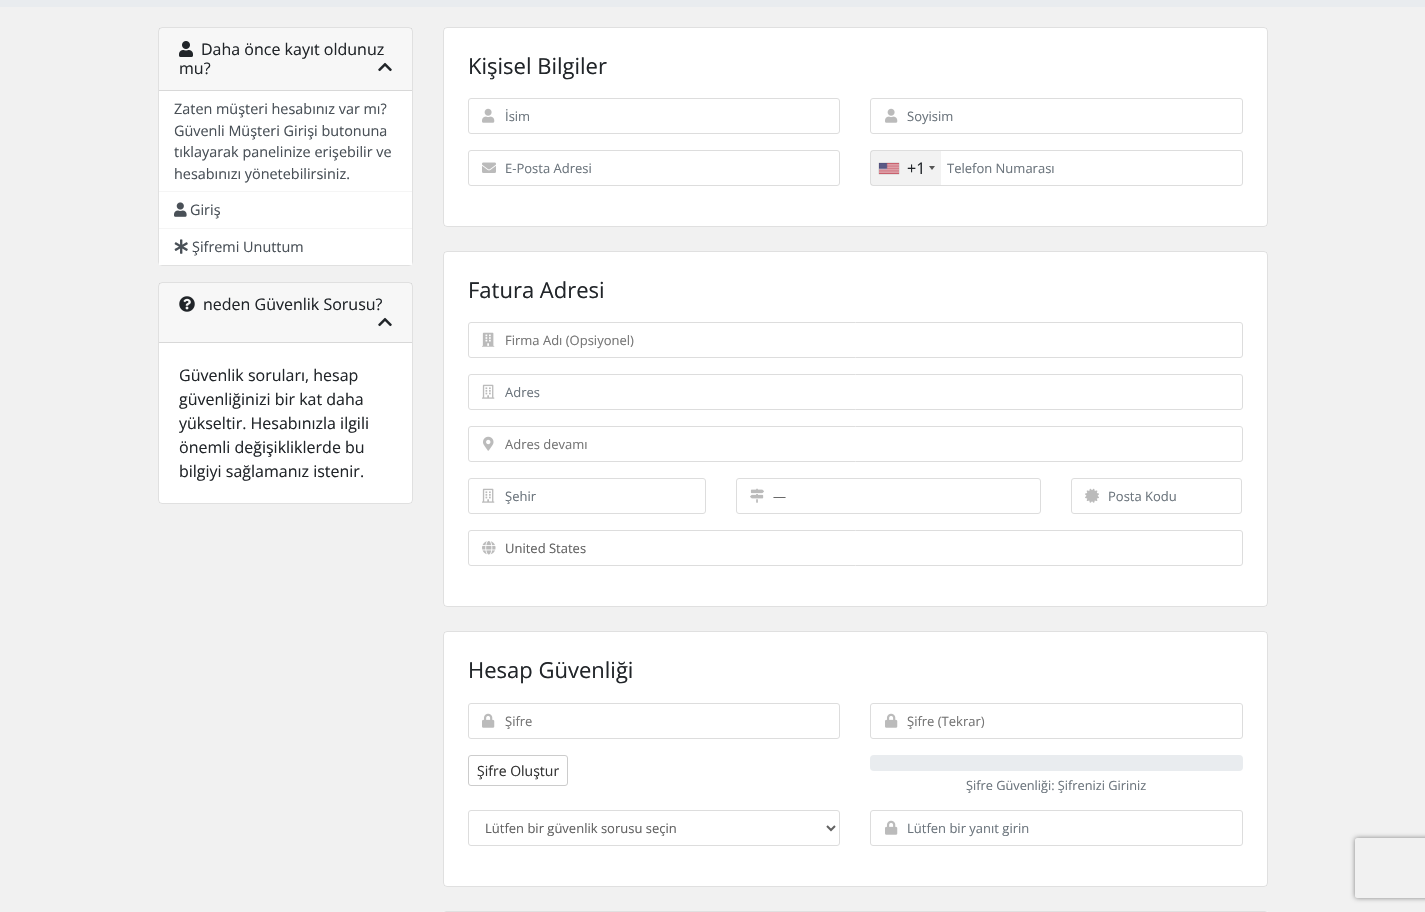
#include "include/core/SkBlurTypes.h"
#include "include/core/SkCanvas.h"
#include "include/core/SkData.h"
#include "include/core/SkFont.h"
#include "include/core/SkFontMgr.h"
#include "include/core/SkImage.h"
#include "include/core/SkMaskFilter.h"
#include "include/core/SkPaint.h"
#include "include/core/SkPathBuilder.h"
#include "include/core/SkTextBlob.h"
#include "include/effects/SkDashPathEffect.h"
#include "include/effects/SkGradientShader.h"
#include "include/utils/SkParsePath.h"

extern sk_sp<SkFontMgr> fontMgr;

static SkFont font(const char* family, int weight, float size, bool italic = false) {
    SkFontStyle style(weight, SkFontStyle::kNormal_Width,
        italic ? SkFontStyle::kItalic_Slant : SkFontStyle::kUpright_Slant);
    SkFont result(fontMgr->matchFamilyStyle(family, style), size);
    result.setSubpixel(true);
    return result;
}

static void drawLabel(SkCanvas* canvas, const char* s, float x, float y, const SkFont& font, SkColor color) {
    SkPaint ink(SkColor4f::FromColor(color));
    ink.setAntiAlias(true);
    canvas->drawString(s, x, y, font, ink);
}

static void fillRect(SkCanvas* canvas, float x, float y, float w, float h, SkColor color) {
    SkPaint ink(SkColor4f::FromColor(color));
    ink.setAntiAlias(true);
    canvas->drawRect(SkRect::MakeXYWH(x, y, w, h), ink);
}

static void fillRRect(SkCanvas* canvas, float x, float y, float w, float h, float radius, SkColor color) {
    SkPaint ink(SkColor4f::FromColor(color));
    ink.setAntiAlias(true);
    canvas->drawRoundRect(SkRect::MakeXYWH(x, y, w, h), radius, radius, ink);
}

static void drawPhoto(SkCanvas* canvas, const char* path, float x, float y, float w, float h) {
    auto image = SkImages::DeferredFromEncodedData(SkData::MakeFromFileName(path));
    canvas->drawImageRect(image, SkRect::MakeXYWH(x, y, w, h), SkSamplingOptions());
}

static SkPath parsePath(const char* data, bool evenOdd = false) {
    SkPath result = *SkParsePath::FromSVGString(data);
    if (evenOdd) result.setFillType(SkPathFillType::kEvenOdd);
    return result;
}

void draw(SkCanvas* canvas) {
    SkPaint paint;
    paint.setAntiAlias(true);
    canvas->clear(0xFFF1F1F1);
    fillRect(canvas, 0, 0, 1425, 7, 0xFFE9ECEF);
    fillRRect(canvas, 158, 27, 255, 239, 4, 0xFFFFFFFF);
    paint.setStroke(true);
    paint.setStrokeWidth(1);
    paint.setColor(0x1F000000);
    canvas->drawRoundRect(SkRect::MakeXYWH(158.5f, 27.5f, 254, 238), 3.5f, 3.5f, paint);
    fillRect(canvas, 159, 28, 253, 62, 0x08000000);
    fillRect(canvas, 159, 90, 253, 1, 0xFFD8D8D8);
    drawPhoto(canvas, "assets/img1.png", 179, 41, 14, 16);
    SkFont font1 = font("Open Sans", 400, 16);
    drawLabel(canvas, "Daha önce kayıt oldunuz", 201, 55, font1, 0xFF212529);
    drawLabel(canvas, "mu?", 179, 74, font1, 0xFF212529);
    drawPhoto(canvas, "assets/img2.png", 378, 62, 14, 10);
    fillRect(canvas, 159, 191, 253, 1, 0xFFF5F5F5);
    SkFont font2 = font("Open Sans", 400, 14.4f);
    drawLabel(canvas, "Zaten müşteri hesabınız var mı?", 174, 114, font2, 0xFF495057);
    drawLabel(canvas, "Güvenli Müşteri Girişi butonuna", 174, 136, font2, 0xFF495057);
    drawLabel(canvas, "tıklayarak panelinize erişebilir ve", 174, 157, font2, 0xFF495057);
    drawLabel(canvas, "hesabınızı yönetebilirsiniz.", 174, 179, font2, 0xFF495057);
    fillRect(canvas, 159, 228, 253, 1, 0xFFF5F5F5);
    drawPhoto(canvas, "assets/img3.png", 174, 202, 13, 15);
    drawLabel(canvas, "Giriş", 190, 215, font2, 0xFF495057);
    fillRect(canvas, 159, 262, 253, 3, 0xFFFFFFFF);
    drawPhoto(canvas, "assets/img4.png", 174, 239, 14, 15);
    drawLabel(canvas, "Şifremi Unuttum", 192, 252, font2, 0xFF495057);
    fillRRect(canvas, 158, 282, 255, 222, 4, 0xFFFFFFFF);
    canvas->drawRoundRect(SkRect::MakeXYWH(158.5f, 282.5f, 254, 221), 3.5f, 3.5f, paint);
    fillRect(canvas, 159, 283, 253, 59, 0x08000000);
    fillRect(canvas, 159, 342, 253, 1, 0xFFD8D8D8);
    drawPhoto(canvas, "assets/img5.png", 179, 296, 16, 16);
    drawLabel(canvas, "neden Güvenlik Sorusu?", 203, 310, font1, 0xFF212529);
    drawPhoto(canvas, "assets/img2.png", 378, 317, 14, 10);
    drawLabel(canvas, "Güvenlik soruları, hesap", 179, 381, font1, 0xFF212529);
    drawLabel(canvas, "güvenliğinizi bir kat daha", 179, 405, font1, 0xFF212529);
    drawLabel(canvas, "yükseltir. Hesabınızla ilgili", 179, 429, font1, 0xFF212529);
    drawLabel(canvas, "önemli değişikliklerde bu", 179, 453, font1, 0xFF212529);
    drawLabel(canvas, "bilgiyi sağlamanız istenir.", 179, 477, font1, 0xFF212529);
    fillRRect(canvas, 443, 27, 825, 200, 4, 0xFFFFFFFF);
    canvas->drawRoundRect(SkRect::MakeXYWH(443.5f, 27.5f, 824, 199), 3.5f, 3.5f, paint);
    SkFont font3 = font("Open Sans", 400, 22);
    drawLabel(canvas, "Kişisel Bilgiler", 468, 74, font3, 0xFF212529);
    paint.setColor(0xFFDDDDDD);
    canvas->drawRoundRect(SkRect::MakeXYWH(468.5f, 98.5f, 371, 35), 2.5f, 2.5f, paint);
    drawPhoto(canvas, "assets/img6.png", 482, 108, 13, 15);
    SkFont font4 = font("Open Sans", 400, 13);
    drawLabel(canvas, "İsim", 505, 121, font4, 0xFF6C757D);
    canvas->drawRoundRect(SkRect::MakeXYWH(870.5f, 98.5f, 372, 35), 2.5f, 2.5f, paint);
    drawPhoto(canvas, "assets/img6.png", 885, 108, 13, 15);
    drawLabel(canvas, "Soyisim", 907, 121, font4, 0xFF6C757D);
    canvas->drawRoundRect(SkRect::MakeXYWH(468.5f, 150.5f, 371, 35), 2.5f, 2.5f, paint);
    drawPhoto(canvas, "assets/img7.png", 482, 162, 14, 11);
    drawLabel(canvas, "E-Posta Adresi", 505, 173, font4, 0xFF6C757D);
    canvas->drawRoundRect(SkRect::MakeXYWH(870.5f, 150.5f, 372, 35), 2.5f, 2.5f, paint);
    fillRect(canvas, 871, 151, 70, 34, 0x0D000000);
    paint.setStroke(false);
    paint.setColor(0xFF888888);
    paint.setMaskFilter(SkMaskFilter::MakeBlur(kNormal_SkBlurStyle, 0.5f));
    canvas->drawRect(SkRect::MakeXYWH(879, 163, 20, 11), paint);
    paint.setMaskFilter(nullptr);
    drawPhoto(canvas, "assets/img8.png", 879, 163, 20, 11);
    drawLabel(canvas, "+1", 907, 174, font1, 0xFF212529);
    paint.setColor(0xFF555555);
    canvas->drawPath(parsePath("M929 166H935L932 170Z"), paint);
    drawLabel(canvas, "Telefon Numarası", 947, 173, font4, 0xFF6C757D);
    fillRRect(canvas, 443, 251, 825, 356, 4, 0xFFFFFFFF);
    paint.setStroke(true);
    paint.setColor(0x1F000000);
    canvas->drawRoundRect(SkRect::MakeXYWH(443.5f, 251.5f, 824, 355), 3.5f, 3.5f, paint);
    drawLabel(canvas, "Fatura Adresi", 468, 298, font3, 0xFF212529);
    paint.setColor(0xFFDDDDDD);
    canvas->drawRoundRect(SkRect::MakeXYWH(468.5f, 322.5f, 774, 35), 2.5f, 2.5f, paint);
    drawPhoto(canvas, "assets/img9.png", 482, 332, 13, 15);
    drawLabel(canvas, "Firma Adı (Opsiyonel)", 505, 345, font4, 0xFF757575);
    canvas->drawRoundRect(SkRect::MakeXYWH(468.5f, 374.5f, 774, 35), 2.5f, 2.5f, paint);
    drawPhoto(canvas, "assets/img10.png", 482, 384, 13, 15);
    drawLabel(canvas, "Adres", 505, 397, font4, 0xFF6C757D);
    canvas->drawRoundRect(SkRect::MakeXYWH(468.5f, 426.5f, 774, 35), 2.5f, 2.5f, paint);
    drawPhoto(canvas, "assets/img11.png", 483, 436, 11, 15);
    drawLabel(canvas, "Adres devamı", 505, 449, font4, 0xFF757575);
    canvas->drawRoundRect(SkRect::MakeXYWH(468.5f, 478.5f, 237, 35), 2.5f, 2.5f, paint);
    drawPhoto(canvas, "assets/img10.png", 482, 488, 13, 15);
    drawLabel(canvas, "Şehir", 505, 501, font4, 0xFF6C757D);
    canvas->drawRoundRect(SkRect::MakeXYWH(736.5f, 478.5f, 304, 35), 2.5f, 2.5f, paint);
    drawPhoto(canvas, "assets/img12.png", 750, 488, 14, 15);
    drawLabel(canvas, "—", 773, 501, font4, 0xFF626262);
    canvas->drawRoundRect(SkRect::MakeXYWH(1071.5f, 478.5f, 170, 35), 2.5f, 2.5f, paint);
    drawPhoto(canvas, "assets/img13.png", 1085, 488, 14, 15);
    drawLabel(canvas, "Posta Kodu", 1108, 501, font4, 0xFF6C757D);
    canvas->drawRoundRect(SkRect::MakeXYWH(468.5f, 530.5f, 774, 35), 2.5f, 2.5f, paint);
    drawPhoto(canvas, "assets/img14.png", 482, 541, 14, 14);
    drawLabel(canvas, "United States", 505, 553, font4, 0xFF626262);
    fillRRect(canvas, 443, 631, 825, 256, 4, 0xFFFFFFFF);
    paint.setColor(0x1F000000);
    canvas->drawRoundRect(SkRect::MakeXYWH(443.5f, 631.5f, 824, 255), 3.5f, 3.5f, paint);
    drawLabel(canvas, "Hesap Güvenliği", 468, 678, font3, 0xFF212529);
    paint.setColor(0xFFDDDDDD);
    canvas->drawRoundRect(SkRect::MakeXYWH(468.5f, 703.5f, 371, 35), 2.5f, 2.5f, paint);
    drawPhoto(canvas, "assets/img15.png", 482, 713, 13, 15);
    drawLabel(canvas, "Şifre", 505, 726, font4, 0xFF757575);
    canvas->drawRoundRect(SkRect::MakeXYWH(870.5f, 703.5f, 372, 35), 2.5f, 2.5f, paint);
    drawPhoto(canvas, "assets/img15.png", 885, 713, 13, 15);
    drawLabel(canvas, "Şifre (Tekrar)", 907, 726, font4, 0xFF757575);
    paint.setColor(0xFFCCCCCC);
    canvas->drawRoundRect(SkRect::MakeXYWH(468.5f, 755.5f, 99, 30), 2.5f, 2.5f, paint);
    SkFont font5 = font("Open Sans", 400, 14);
    drawLabel(canvas, "Şifre Oluştur", 477, 776, font5, 0xFF333333);
    fillRRect(canvas, 870, 755, 373, 16, 4, 0xFFE9ECEF);
    SkFont font6 = font("Open Sans", 400, 12.75f);
    drawLabel(canvas, "Şifre Güvenliği: Şifrenizi Giriniz", 966, 790, font6, 0xFF6C757D);
    paint.setColor(0xFFDDDDDD);
    canvas->drawRoundRect(SkRect::MakeXYWH(468.5f, 810.5f, 371, 35), 2.5f, 2.5f, paint);
    paint.setStrokeWidth(2);
    paint.setColor(0xFF626262);
    canvas->drawPath(parsePath("M827 826L831 830L835 826"), paint);
    drawLabel(canvas, "Lütfen bir güvenlik sorusu seçin", 485, 833, font4, 0xFF626262);
    paint.setStrokeWidth(1);
    paint.setColor(0xFFDDDDDD);
    canvas->drawRoundRect(SkRect::MakeXYWH(870.5f, 810.5f, 372, 35), 2.5f, 2.5f, paint);
    drawPhoto(canvas, "assets/img15.png", 885, 820, 13, 15);
    drawLabel(canvas, "Lütfen bir yanıt girin", 907, 833, font4, 0xFF6C757D);
    canvas->save();
    canvas->clipPath(parsePath("M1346 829H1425V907H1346ZM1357 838H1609C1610 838 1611 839 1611 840V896C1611 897 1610 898 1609 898H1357C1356 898 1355 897 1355 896V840C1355 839 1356 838 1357 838Z", true), true);
    paint.setStroke(false);
    paint.setColor(0xFF808080);
    paint.setMaskFilter(SkMaskFilter::MakeBlur(kNormal_SkBlurStyle, 2.5f));
    canvas->drawRoundRect(SkRect::MakeXYWH(1355, 838, 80, 60), 2, 2, paint);
    paint.setMaskFilter(nullptr);
    canvas->restore();
    fillRRect(canvas, 443, 911, 825, 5, 4, 0xFFFFFFFF);
    paint.setStroke(true);
    paint.setColor(0x1F000000);
    canvas->drawRoundRect(SkRect::MakeXYWH(443.5f, 911.5f, 824, 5), 3.5f, 3.5f, paint);
}
